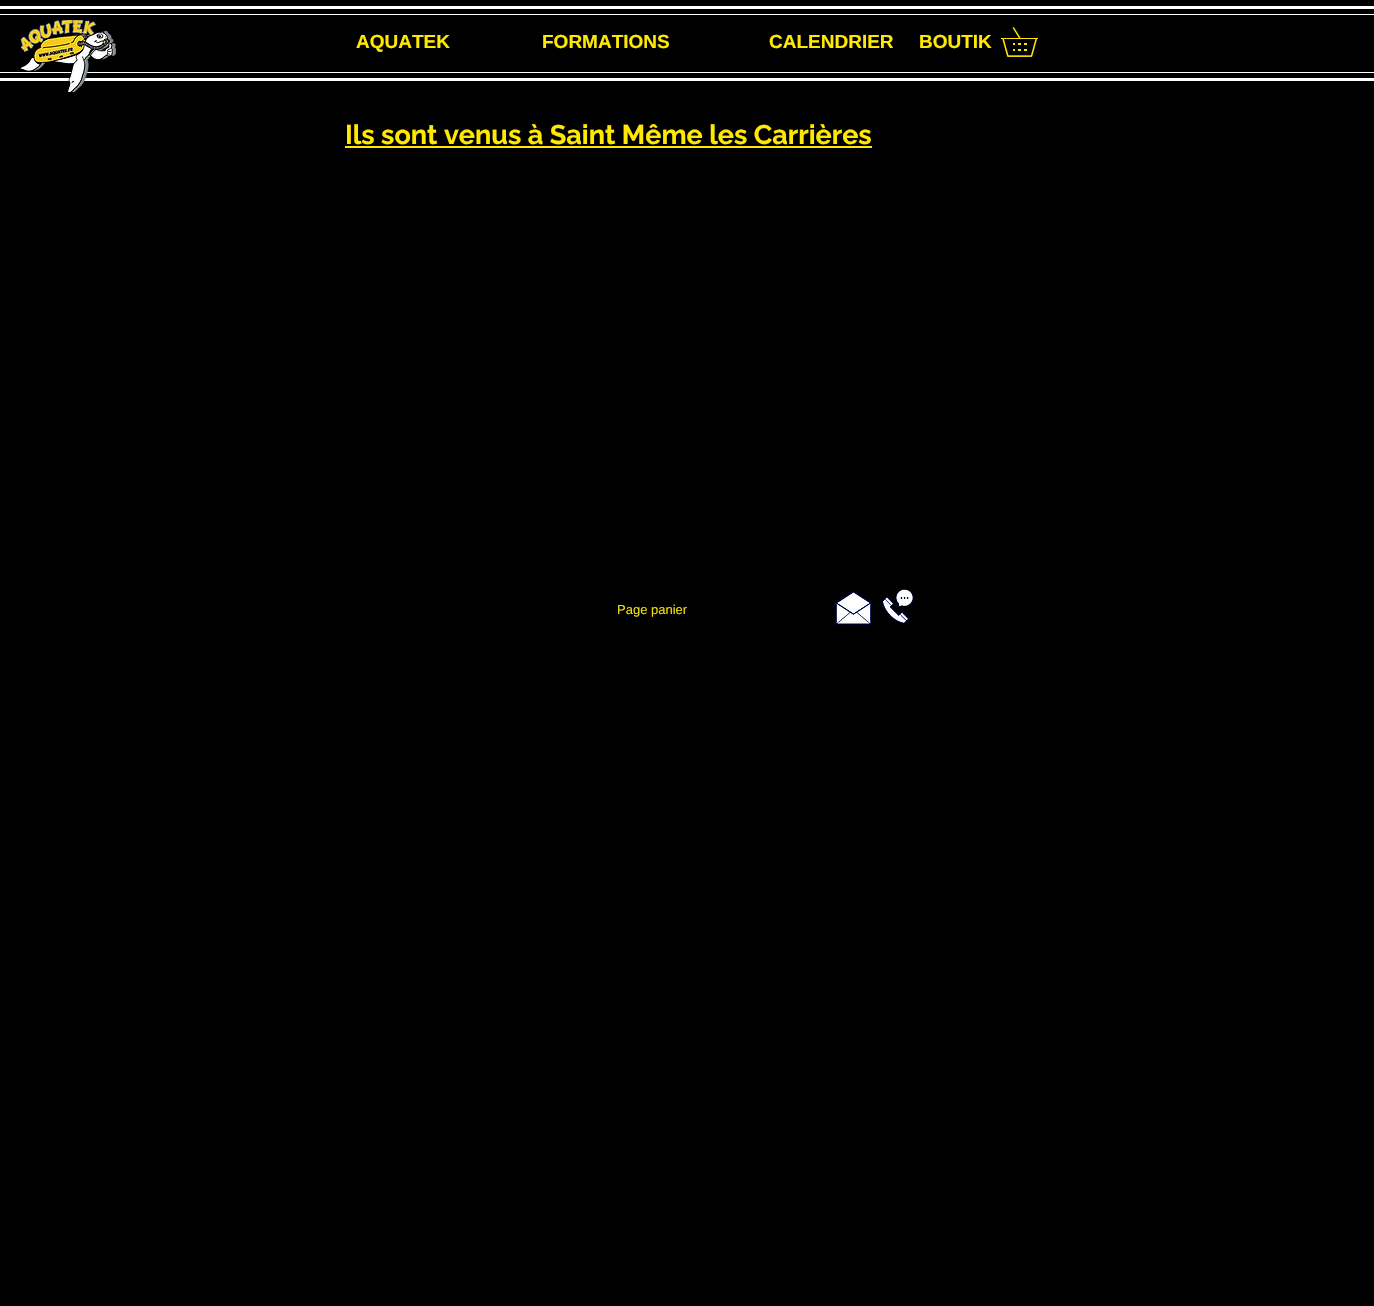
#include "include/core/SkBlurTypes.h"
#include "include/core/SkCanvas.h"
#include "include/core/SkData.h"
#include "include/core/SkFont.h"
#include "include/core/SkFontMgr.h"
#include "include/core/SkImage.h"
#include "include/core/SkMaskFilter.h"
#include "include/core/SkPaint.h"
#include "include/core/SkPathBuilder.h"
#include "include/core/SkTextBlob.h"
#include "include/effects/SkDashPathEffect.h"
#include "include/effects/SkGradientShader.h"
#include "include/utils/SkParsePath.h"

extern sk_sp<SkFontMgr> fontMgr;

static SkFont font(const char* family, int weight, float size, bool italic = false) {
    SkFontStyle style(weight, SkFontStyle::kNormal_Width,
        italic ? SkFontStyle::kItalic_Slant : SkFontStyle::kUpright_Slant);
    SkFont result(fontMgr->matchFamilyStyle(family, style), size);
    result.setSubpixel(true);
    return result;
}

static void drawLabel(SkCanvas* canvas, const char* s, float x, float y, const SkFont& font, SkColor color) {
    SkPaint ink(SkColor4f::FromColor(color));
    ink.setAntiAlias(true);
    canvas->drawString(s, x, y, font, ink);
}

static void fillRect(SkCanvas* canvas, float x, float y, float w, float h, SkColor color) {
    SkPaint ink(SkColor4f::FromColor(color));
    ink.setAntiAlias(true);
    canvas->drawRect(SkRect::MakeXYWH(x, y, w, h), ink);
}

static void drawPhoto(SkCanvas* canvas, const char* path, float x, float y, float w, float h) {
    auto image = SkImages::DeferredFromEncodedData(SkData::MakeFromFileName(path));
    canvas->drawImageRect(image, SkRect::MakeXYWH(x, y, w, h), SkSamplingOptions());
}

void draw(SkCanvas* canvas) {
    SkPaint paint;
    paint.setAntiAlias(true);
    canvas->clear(0xFF000000);
    fillRect(canvas, 0, 78, 1374, 3, 0xFFFFFFFF);
    fillRect(canvas, 0, 72, 1374, 1, 0xFFFFFFFF);
    drawPhoto(canvas, "assets/img1.png", 20, 20, 96, 72);
    fillRect(canvas, 0, 6, 1374, 3, 0xFFFFFFFF);
    fillRect(canvas, 0, 14, 1374, 1, 0xFFFFFFFF);
    SkFont font1 = font("Liberation Sans", 700, 19);
    drawLabel(canvas, "AQUATEK", 356, 48, font1, 0xFFFFE900);
    drawLabel(canvas, "FORMATIONS", 542, 48, font1, 0xFFFFE900);
    drawLabel(canvas, "CALENDRIER", 769, 48, font1, 0xFFFFE900);
    drawLabel(canvas, "BOUTIK", 919, 48, font1, 0xFFFFE900);
    drawPhoto(canvas, "assets/img2.png", 1001, 27, 37, 30);
    SkFont font2 = font("Raleway", 700, 27);
    drawLabel(canvas, "Ils sont venus à Saint Même les Carrières", 345, 144, font2, 0xFFFFE900);
    fillRect(canvas, 345, 146, 527, 2, 0xFFFFE900);
    SkFont font3 = font("Liberation Sans", 400, 13);
    drawLabel(canvas, "Page panier", 617, 614, font3, 0xFFF2DF0A);
    drawPhoto(canvas, "assets/img3.png", 835, 591, 37, 34);
    drawPhoto(canvas, "assets/img4.png", 881, 589, 32, 35);
}
